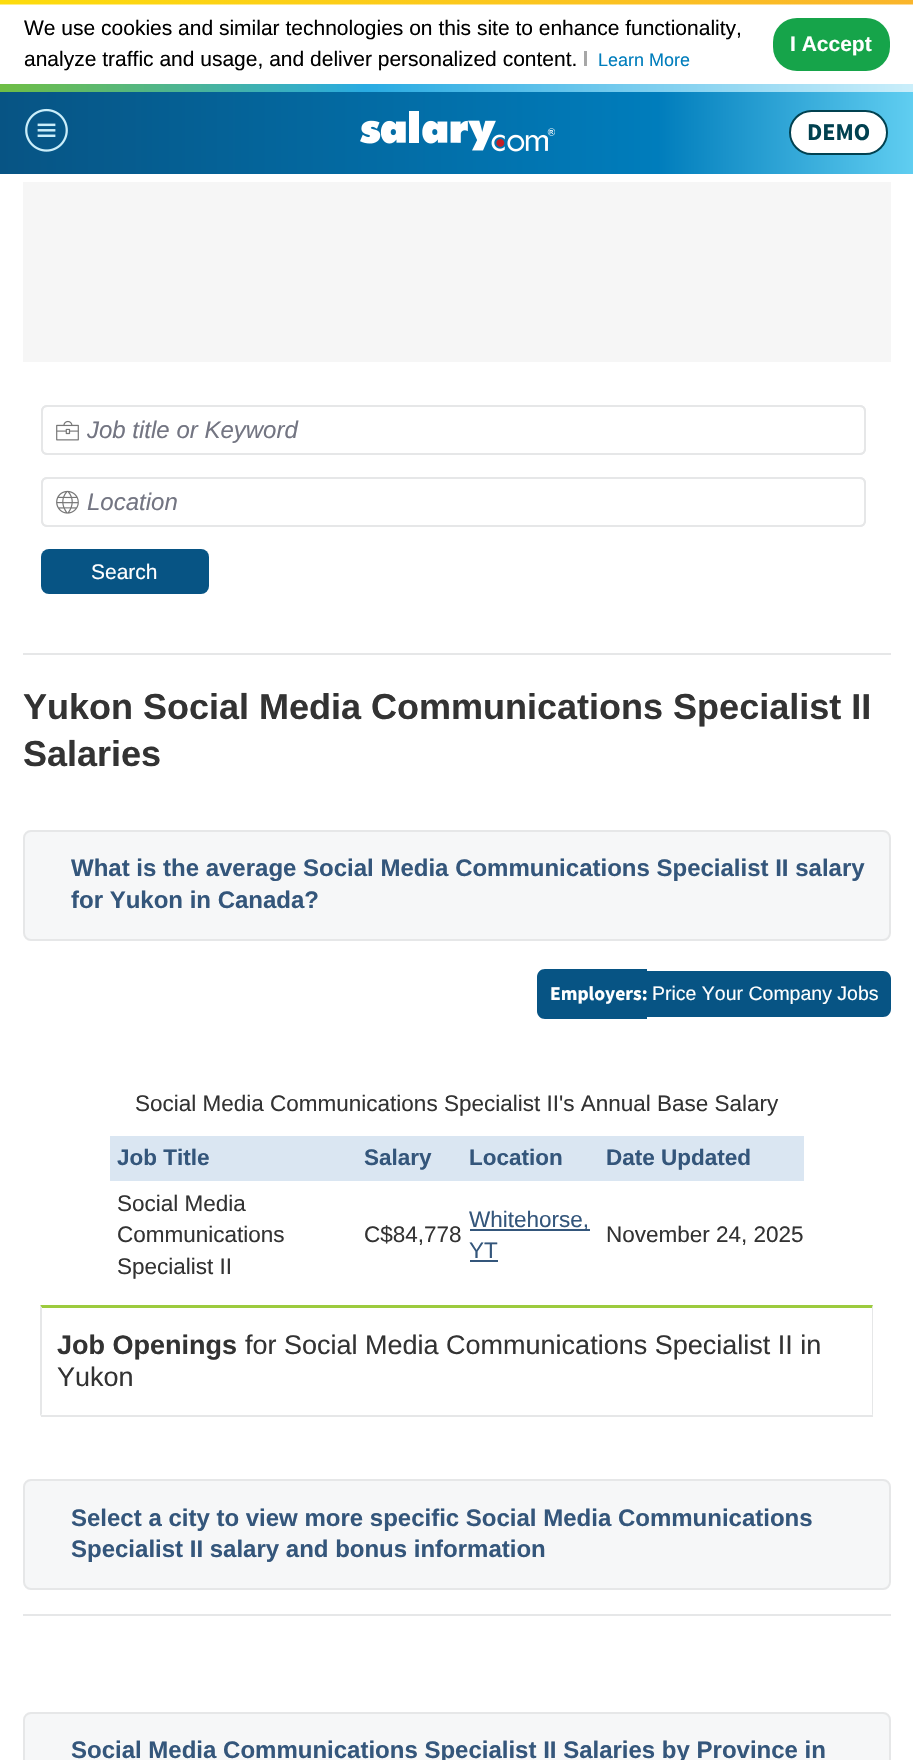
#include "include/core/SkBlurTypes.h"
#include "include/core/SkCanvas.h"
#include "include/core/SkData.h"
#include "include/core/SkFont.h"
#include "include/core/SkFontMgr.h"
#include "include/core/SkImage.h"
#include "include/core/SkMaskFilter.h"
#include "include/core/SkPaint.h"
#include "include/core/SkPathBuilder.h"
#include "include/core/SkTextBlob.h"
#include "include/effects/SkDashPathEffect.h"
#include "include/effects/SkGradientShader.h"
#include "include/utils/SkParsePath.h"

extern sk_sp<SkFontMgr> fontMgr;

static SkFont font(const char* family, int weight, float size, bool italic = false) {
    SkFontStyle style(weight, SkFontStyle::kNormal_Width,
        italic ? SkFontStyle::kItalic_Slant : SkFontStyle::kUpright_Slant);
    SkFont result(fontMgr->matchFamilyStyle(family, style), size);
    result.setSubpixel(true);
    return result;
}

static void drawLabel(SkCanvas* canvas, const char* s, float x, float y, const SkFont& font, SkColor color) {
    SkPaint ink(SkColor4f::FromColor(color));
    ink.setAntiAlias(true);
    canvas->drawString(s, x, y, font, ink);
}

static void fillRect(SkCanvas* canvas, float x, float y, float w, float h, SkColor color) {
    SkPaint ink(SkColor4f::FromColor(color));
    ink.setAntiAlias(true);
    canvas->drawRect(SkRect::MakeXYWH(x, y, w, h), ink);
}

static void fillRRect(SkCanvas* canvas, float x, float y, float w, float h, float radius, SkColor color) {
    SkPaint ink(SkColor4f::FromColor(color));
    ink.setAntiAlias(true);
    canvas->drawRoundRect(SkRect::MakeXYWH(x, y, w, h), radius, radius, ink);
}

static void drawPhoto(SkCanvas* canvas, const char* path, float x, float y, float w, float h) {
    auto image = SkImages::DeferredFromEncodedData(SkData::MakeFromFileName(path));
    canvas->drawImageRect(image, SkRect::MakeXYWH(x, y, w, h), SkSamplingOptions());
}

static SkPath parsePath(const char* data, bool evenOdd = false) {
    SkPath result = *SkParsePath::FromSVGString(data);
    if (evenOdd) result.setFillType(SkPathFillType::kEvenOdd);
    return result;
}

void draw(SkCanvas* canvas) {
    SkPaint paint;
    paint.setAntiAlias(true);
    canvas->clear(0xFFFFFFFF);
    drawPhoto(canvas, "assets/img1.png", 0, 0, 913, 5);
    SkFont font1 = font("Liberation Sans", 400, 21);
    drawLabel(canvas, "We use cookies and similar technologies on this site to enhance functionality,", 24, 35, font1, 0xFF000000);
    drawLabel(canvas, "analyze traffic and usage, and deliver personalized content.", 24, 66, font1, 0xFF000000);
    fillRect(canvas, 584, 51, 3, 15, 0xFFA7A7A7);
    SkFont font2 = font("Liberation Sans", 400, 18);
    drawLabel(canvas, "Learn More", 598, 66, font2, 0xFF007DBC);
    fillRRect(canvas, 773, 18, 117, 53, 24, 0xFF16A44A);
    SkFont font3 = font("Liberation Sans", 700, 21);
    drawLabel(canvas, "I Accept", 790, 51, font3, 0xFFFFFFFF);
    {
        const SkColor colors[] = {0xFF075484, 0xFF007DBC, 0xFF60CEF1};
        const float stops[] = {0, 0.72f, 1};
        const SkPoint ends[] = {{0, 129}, {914, 129}};
        paint.setShader(SkGradientShader::MakeLinear(ends, colors, stops, 3, SkTileMode::kClamp));
        paint.setAlpha(255);
    }
    canvas->drawRect(SkRect::MakeXYWH(0, 92, 913, 82), paint);
    {
        const SkColor colors[] = {0xFF6FBE44, 0xFF29ABE2, 0xFFCAEEFA};
        const float stops[] = {0, 0.4f, 1};
        const SkPoint ends[] = {{0, 88}, {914, 88}};
        paint.setShader(SkGradientShader::MakeLinear(ends, colors, stops, 3, SkTileMode::kClamp));
        paint.setAlpha(255);
    }
    canvas->drawRect(SkRect::MakeXYWH(0, 84, 913, 8), paint);
    drawPhoto(canvas, "assets/img2.png", 25, 108, 43, 44);
    drawPhoto(canvas, "assets/img3.png", 360, 111, 195, 41);
    paint.setShader(nullptr);
    paint.setColor(0xFFFFFFFF);
    canvas->drawRoundRect(SkRect::MakeXYWH(790, 111, 97, 43), 21.5f, 21.5f, paint);
    paint.setStroke(true);
    paint.setStrokeWidth(2);
    paint.setColor(0xFF014150);
    canvas->drawRoundRect(SkRect::MakeXYWH(790, 111, 97, 43), 21.5f, 21.5f, paint);
    SkFont font4 = font("Source Sans Pro", 700, 24);
    drawLabel(canvas, "DEMO", 807, 140, font4, 0xFF014150);
    fillRect(canvas, 23, 182, 868, 180, 0xFFF6F6F6);
    fillRect(canvas, 23, 653, 868, 2, 0xFFE6E7E8);
    paint.setColor(0xFFE6E7E8);
    canvas->drawRoundRect(SkRect::MakeXYWH(42, 406, 823, 48), 5, 5, paint);
    canvas->drawRoundRect(SkRect::MakeXYWH(42, 406, 823, 48), 5, 5, paint);
    drawPhoto(canvas, "assets/img4.png", 56, 420, 23, 21);
    SkFont font5 = font("Liberation Sans", 400, 24, true);
    drawLabel(canvas, "Job title or Keyword", 87, 438, font5, 0xFF737582);
    canvas->drawRoundRect(SkRect::MakeXYWH(42, 478, 823, 48), 5, 5, paint);
    canvas->drawRoundRect(SkRect::MakeXYWH(42, 478, 823, 48), 5, 5, paint);
    drawPhoto(canvas, "assets/img5.png", 56, 490, 23, 24);
    drawLabel(canvas, "Location", 87, 510, font5, 0xFF737582);
    fillRRect(canvas, 41, 549, 168, 45, 8, 0xFF075484);
    drawLabel(canvas, "Search", 91, 579, font1, 0xFFFFFFFF);
    SkFont font6 = font("Liberation Sans", 700, 36);
    drawLabel(canvas, "Yukon Social Media Communications Specialist II", 23, 719, font6, 0xFF333333);
    drawLabel(canvas, "Salaries", 23, 766, font6, 0xFF333333);
    paint.setStroke(false);
    paint.setColor(0xFFF6F7F8);
    canvas->drawRoundRect(SkRect::MakeXYWH(24, 831, 866, 109), 7, 7, paint);
    paint.setStroke(true);
    paint.setColor(0xFFE6E7E8);
    canvas->drawRoundRect(SkRect::MakeXYWH(24, 831, 866, 109), 7, 7, paint);
    SkFont font7 = font("Liberation Sans", 700, 24);
    drawLabel(canvas, "What is the average Social Media Communications Specialist II salary", 71, 876, font7, 0xFF34567B);
    drawLabel(canvas, "for Yukon in Canada?", 71, 908, font7, 0xFF34567B);
    paint.setStroke(false);
    paint.setColor(0xFF075484);
    canvas->drawPath(parsePath("M545 969H647V1019H545C540.5 1019 537 1015.5 537 1011V977C537 972.5 540.5 969 545 969Z"), paint);
    SkFont font8 = font("Source Sans Pro", 700, 19.5f);
    drawLabel(canvas, "Employers:", 550, 1000, font8, 0xFFFFFFFF);
    canvas->drawPath(parsePath("M647 971H883C887.5 971 891 974.5 891 979V1009C891 1013.5 887.5 1017 883 1017H647Z"), paint);
    SkFont font9 = font("Liberation Sans", 400, 19.5f);
    drawLabel(canvas, "Price Your Company Jobs", 652, 1000, font9, 0xFFFFFFFF);
    SkFont font10 = font("Liberation Sans", 400, 22.5f);
    drawLabel(canvas, "Social Media Communications Specialist II's Annual Base Salary", 135, 1111, font10, 0xFF333333);
    fillRect(canvas, 110, 1136, 694, 45, 0xFFDAE6F2);
    SkFont font11 = font("Liberation Sans", 700, 22.5f);
    drawLabel(canvas, "Job Title", 117, 1165, font11, 0xFF34567B);
    drawLabel(canvas, "Salary", 364, 1165, font11, 0xFF34567B);
    drawLabel(canvas, "Location", 469, 1165, font11, 0xFF34567B);
    drawLabel(canvas, "Date Updated", 606, 1165, font11, 0xFF34567B);
    drawLabel(canvas, "Social Media", 117, 1211, font10, 0xFF333333);
    drawLabel(canvas, "Communications", 117, 1242, font10, 0xFF333333);
    drawLabel(canvas, "Specialist II", 117, 1274, font10, 0xFF333333);
    drawLabel(canvas, "C$84,778", 364, 1242, font10, 0xFF333333);
    fillRect(canvas, 470, 1229, 120, 2, 0xFF34567B);
    drawLabel(canvas, "Whitehorse,", 469, 1227, font10, 0xFF34567B);
    drawLabel(canvas, "YT", 469, 1258, font10, 0xFF34567B);
    fillRect(canvas, 470, 1260, 28, 2, 0xFF34567B);
    drawLabel(canvas, "November 24, 2025", 606, 1242, font10, 0xFF333333);
    paint.setColor(0xFF9CCB3E);
    canvas->drawPath(parsePath("M40 1305H873L872 1308H42Z"), paint);
    paint.setColor(0xFFE6E7E8);
    canvas->drawPath(parsePath("M873 1305V1416L872 1414V1308Z"), paint);
    fillRect(canvas, 41, 1415, 832, 2, 0xFFE6E7E8);
    canvas->drawPath(parsePath("M40 1416V1305L42 1308V1414Z"), paint);
    SkFont font12 = font("Liberation Sans", 700, 27);
    drawLabel(canvas, "Job Openings", 57, 1354, font12, 0xFF333333);
    SkFont font13 = font("Liberation Sans", 400, 27);
    drawLabel(canvas, "for Social Media Communications Specialist II in", 245, 1354, font13, 0xFF333333);
    drawLabel(canvas, "Yukon", 57, 1386, font13, 0xFF333333);
    paint.setColor(0xFFF6F7F8);
    canvas->drawRoundRect(SkRect::MakeXYWH(24, 1480, 866, 109), 7, 7, paint);
    paint.setStroke(true);
    paint.setColor(0xFFE6E7E8);
    canvas->drawRoundRect(SkRect::MakeXYWH(24, 1480, 866, 109), 7, 7, paint);
    drawLabel(canvas, "Select a city to view more specific Social Media Communications", 71, 1526, font7, 0xFF34567B);
    drawLabel(canvas, "Specialist II salary and bonus information", 71, 1557, font7, 0xFF34567B);
    fillRect(canvas, 23, 1614, 868, 2, 0xFFE6E7E8);
    paint.setStroke(false);
    paint.setColor(0xFFF6F7F8);
    canvas->drawRoundRect(SkRect::MakeXYWH(24, 1713, 866, 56), 7, 7, paint);
    paint.setStroke(true);
    paint.setColor(0xFFE6E7E8);
    canvas->drawRoundRect(SkRect::MakeXYWH(24, 1713, 866, 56), 7, 7, paint);
    drawLabel(canvas, "Social Media Communications Specialist II Salaries by Province in", 71, 1758, font7, 0xFF34567B);
}
